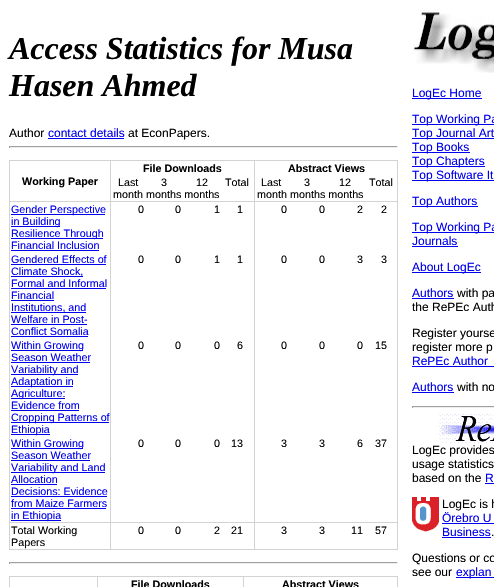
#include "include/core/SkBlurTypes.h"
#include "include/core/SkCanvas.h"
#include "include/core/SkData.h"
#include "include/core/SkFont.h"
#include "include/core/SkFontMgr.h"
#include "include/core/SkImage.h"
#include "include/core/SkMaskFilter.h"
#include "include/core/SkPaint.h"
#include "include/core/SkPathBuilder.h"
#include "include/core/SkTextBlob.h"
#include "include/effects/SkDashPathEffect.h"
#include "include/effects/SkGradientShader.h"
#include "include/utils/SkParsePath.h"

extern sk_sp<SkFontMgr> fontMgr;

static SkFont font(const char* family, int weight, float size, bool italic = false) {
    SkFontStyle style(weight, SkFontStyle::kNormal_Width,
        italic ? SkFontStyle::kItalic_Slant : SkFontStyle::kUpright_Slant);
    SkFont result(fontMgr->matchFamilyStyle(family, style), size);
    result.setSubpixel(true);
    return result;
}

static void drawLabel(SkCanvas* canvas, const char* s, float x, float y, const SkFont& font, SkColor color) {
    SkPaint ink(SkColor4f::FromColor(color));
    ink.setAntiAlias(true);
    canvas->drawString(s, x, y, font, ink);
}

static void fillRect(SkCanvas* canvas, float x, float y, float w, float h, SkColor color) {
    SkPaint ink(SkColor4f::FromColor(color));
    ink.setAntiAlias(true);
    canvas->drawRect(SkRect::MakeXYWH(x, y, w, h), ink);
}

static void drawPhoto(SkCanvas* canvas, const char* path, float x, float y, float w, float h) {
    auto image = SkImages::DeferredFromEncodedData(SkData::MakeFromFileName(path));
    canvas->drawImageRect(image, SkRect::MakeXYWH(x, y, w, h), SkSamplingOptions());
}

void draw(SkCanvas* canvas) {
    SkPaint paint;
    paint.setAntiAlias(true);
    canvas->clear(0xFFFFFFFF);
    SkFont font1 = font("Liberation Serif", 700, 32, true);
    drawLabel(canvas, "Access Statistics for Musa", 9, 59, font1, 0xFF000000);
    drawLabel(canvas, "Hasen Ahmed", 9, 96, font1, 0xFF000000);
    SkFont font2 = font("Liberation Sans", 400, 12);
    drawLabel(canvas, "Author", 9, 137, font2, 0xFF000000);
    drawLabel(canvas, "contact details", 48, 137, font2, 0xFF0000EE);
    fillRect(canvas, 48, 138, 76, 1, 0xFF0000EE);
    drawLabel(canvas, "at EconPapers.", 128, 137, font2, 0xFF000000);
    fillRect(canvas, 9, 146, 389, 1, 0xFF9F9F9F);
    fillRect(canvas, 397, 146, 1, 2, 0xFFEEEEEE);
    fillRect(canvas, 9, 147, 389, 1, 0xFFEEEEEE);
    fillRect(canvas, 9, 146, 1, 2, 0xFF9F9F9F);
    fillRect(canvas, 110, 160, 1, 390, 0xFFD3D3D3);
    fillRect(canvas, 9, 160, 1, 390, 0xFFD3D3D3);
    fillRect(canvas, 254, 160, 1, 390, 0xFFD3D3D3);
    fillRect(canvas, 397, 160, 1, 390, 0xFFD3D3D3);
    fillRect(canvas, 9, 160, 389, 1, 0xFFD3D3D3);
    SkFont font3 = font("Liberation Sans", 700, 10.75f);
    drawLabel(canvas, "File Downloads", 143, 172, font3, 0xFF000000);
    drawLabel(canvas, "Abstract Views", 288, 172, font3, 0xFF000000);
    drawLabel(canvas, "Working Paper", 22, 185, font3, 0xFF000000);
    fillRect(canvas, 9, 201, 389, 1, 0xFFD3D3D3);
    SkFont font4 = font("Liberation Sans", 400, 10.75f);
    drawLabel(canvas, "Last", 118, 186, font4, 0xFF000000);
    drawLabel(canvas, "month", 113, 198, font4, 0xFF000000);
    drawLabel(canvas, "3", 161, 186, font4, 0xFF000000);
    drawLabel(canvas, "months months", 146, 198, font4, 0xFF000000);
    drawLabel(canvas, "12", 196, 186, font4, 0xFF000000);
    drawLabel(canvas, "Total", 225, 186, font4, 0xFF000000);
    drawLabel(canvas, "Last", 261, 186, font4, 0xFF000000);
    drawLabel(canvas, "month", 257, 198, font4, 0xFF000000);
    drawLabel(canvas, "3", 304, 186, font4, 0xFF000000);
    drawLabel(canvas, "months months", 290, 198, font4, 0xFF000000);
    drawLabel(canvas, "12", 339, 186, font4, 0xFF000000);
    drawLabel(canvas, "Total", 369, 186, font4, 0xFF000000);
    fillRect(canvas, 11, 214, 94, 1, 0xFF0000EE);
    drawLabel(canvas, "Gender Perspective", 11, 213, font4, 0xFF0000EE);
    fillRect(canvas, 11, 226, 49, 1, 0xFF0000EE);
    drawLabel(canvas, "in Building", 11, 225, font4, 0xFF0000EE);
    fillRect(canvas, 11, 238, 92, 1, 0xFF0000EE);
    drawLabel(canvas, "Resilience Through", 11, 237, font4, 0xFF0000EE);
    drawLabel(canvas, "Financial Inclusion", 11, 249, font4, 0xFF0000EE);
    fillRect(canvas, 11, 250, 88, 1, 0xFF0000EE);
    drawLabel(canvas, "0", 138, 213, font4, 0xFF000000);
    drawLabel(canvas, "0", 175, 213, font4, 0xFF000000);
    drawLabel(canvas, "1", 214, 213, font4, 0xFF000000);
    drawLabel(canvas, "1", 237, 213, font4, 0xFF000000);
    drawLabel(canvas, "0", 281, 213, font4, 0xFF000000);
    drawLabel(canvas, "0", 319, 213, font4, 0xFF000000);
    drawLabel(canvas, "2", 357, 213, font4, 0xFF000000);
    drawLabel(canvas, "2", 381, 213, font4, 0xFF000000);
    drawLabel(canvas, "Gendered Effects of", 11, 263, font4, 0xFF0000EE);
    fillRect(canvas, 11, 264, 95, 1, 0xFF0000EE);
    fillRect(canvas, 11, 276, 72, 1, 0xFF0000EE);
    drawLabel(canvas, "Climate Shock,", 11, 275, font4, 0xFF0000EE);
    drawLabel(canvas, "Formal and Informal", 11, 287, font4, 0xFF0000EE);
    fillRect(canvas, 11, 288, 95, 1, 0xFF0000EE);
    drawLabel(canvas, "Financial", 11, 299, font4, 0xFF0000EE);
    fillRect(canvas, 11, 300, 43, 1, 0xFF0000EE);
    fillRect(canvas, 11, 312, 75, 1, 0xFF0000EE);
    drawLabel(canvas, "Institutions, and", 11, 311, font4, 0xFF0000EE);
    drawLabel(canvas, "Welfare in Post-", 11, 323, font4, 0xFF0000EE);
    fillRect(canvas, 11, 324, 76, 1, 0xFF0000EE);
    drawLabel(canvas, "Conflict Somalia", 11, 335, font4, 0xFF0000EE);
    fillRect(canvas, 11, 336, 77, 1, 0xFF0000EE);
    drawLabel(canvas, "0", 138, 263, font4, 0xFF000000);
    drawLabel(canvas, "0", 175, 263, font4, 0xFF000000);
    drawLabel(canvas, "1", 214, 263, font4, 0xFF000000);
    drawLabel(canvas, "1", 237, 263, font4, 0xFF000000);
    drawLabel(canvas, "0", 281, 263, font4, 0xFF000000);
    drawLabel(canvas, "0", 319, 263, font4, 0xFF000000);
    drawLabel(canvas, "3", 357, 263, font4, 0xFF000000);
    drawLabel(canvas, "3", 381, 263, font4, 0xFF000000);
    fillRect(canvas, 11, 350, 72, 1, 0xFF0000EE);
    drawLabel(canvas, "Within Growing", 11, 349, font4, 0xFF0000EE);
    drawLabel(canvas, "Season Weather", 11, 361, font4, 0xFF0000EE);
    fillRect(canvas, 11, 362, 79, 1, 0xFF0000EE);
    fillRect(canvas, 11, 374, 67, 1, 0xFF0000EE);
    drawLabel(canvas, "Variability and", 11, 373, font4, 0xFF0000EE);
    fillRect(canvas, 11, 386, 62, 1, 0xFF0000EE);
    drawLabel(canvas, "Adaptation in", 11, 385, font4, 0xFF0000EE);
    fillRect(canvas, 11, 398, 54, 1, 0xFF0000EE);
    drawLabel(canvas, "Agriculture:", 11, 397, font4, 0xFF0000EE);
    drawLabel(canvas, "Evidence from", 11, 409, font4, 0xFF0000EE);
    fillRect(canvas, 11, 410, 68, 1, 0xFF0000EE);
    fillRect(canvas, 11, 422, 98, 1, 0xFF0000EE);
    drawLabel(canvas, "Cropping Patterns of", 11, 421, font4, 0xFF0000EE);
    fillRect(canvas, 11, 434, 39, 1, 0xFF0000EE);
    drawLabel(canvas, "Ethiopia", 11, 433, font4, 0xFF0000EE);
    drawLabel(canvas, "0", 138, 349, font4, 0xFF000000);
    drawLabel(canvas, "0", 175, 349, font4, 0xFF000000);
    drawLabel(canvas, "0", 214, 349, font4, 0xFF000000);
    drawLabel(canvas, "6", 237, 349, font4, 0xFF000000);
    drawLabel(canvas, "0", 281, 349, font4, 0xFF000000);
    drawLabel(canvas, "0", 319, 349, font4, 0xFF000000);
    drawLabel(canvas, "0", 357, 349, font4, 0xFF000000);
    drawLabel(canvas, "15", 375, 349, font4, 0xFF000000);
    fillRect(canvas, 9, 522, 389, 1, 0xFFD3D3D3);
    fillRect(canvas, 11, 448, 72, 1, 0xFF0000EE);
    drawLabel(canvas, "Within Growing", 11, 447, font4, 0xFF0000EE);
    drawLabel(canvas, "Season Weather", 11, 459, font4, 0xFF0000EE);
    fillRect(canvas, 11, 460, 79, 1, 0xFF0000EE);
    fillRect(canvas, 11, 472, 94, 1, 0xFF0000EE);
    drawLabel(canvas, "Variability and Land", 11, 471, font4, 0xFF0000EE);
    drawLabel(canvas, "Allocation", 11, 483, font4, 0xFF0000EE);
    fillRect(canvas, 11, 484, 46, 1, 0xFF0000EE);
    drawLabel(canvas, "Decisions: Evidence", 11, 495, font4, 0xFF0000EE);
    fillRect(canvas, 11, 496, 96, 1, 0xFF0000EE);
    drawLabel(canvas, "from Maize Farmers", 11, 507, font4, 0xFF0000EE);
    fillRect(canvas, 11, 508, 95, 1, 0xFF0000EE);
    fillRect(canvas, 11, 520, 50, 1, 0xFF0000EE);
    drawLabel(canvas, "in Ethiopia", 11, 519, font4, 0xFF0000EE);
    drawLabel(canvas, "0", 138, 447, font4, 0xFF000000);
    drawLabel(canvas, "0", 175, 447, font4, 0xFF000000);
    drawLabel(canvas, "0", 214, 447, font4, 0xFF000000);
    drawLabel(canvas, "13", 231, 447, font4, 0xFF000000);
    drawLabel(canvas, "3", 281, 447, font4, 0xFF000000);
    drawLabel(canvas, "3", 319, 447, font4, 0xFF000000);
    drawLabel(canvas, "6", 357, 447, font4, 0xFF000000);
    drawLabel(canvas, "37", 375, 447, font4, 0xFF000000);
    fillRect(canvas, 9, 549, 389, 1, 0xFFD3D3D3);
    drawLabel(canvas, "Total Working", 11, 534, font4, 0xFF000000);
    drawLabel(canvas, "Papers", 11, 546, font4, 0xFF000000);
    drawLabel(canvas, "0", 138, 534, font4, 0xFF000000);
    drawLabel(canvas, "0", 175, 534, font4, 0xFF000000);
    drawLabel(canvas, "2", 214, 534, font4, 0xFF000000);
    drawLabel(canvas, "21", 231, 534, font4, 0xFF000000);
    drawLabel(canvas, "3", 281, 534, font4, 0xFF000000);
    drawLabel(canvas, "3", 319, 534, font4, 0xFF000000);
    drawLabel(canvas, "11", 351, 534, font4, 0xFF000000);
    drawLabel(canvas, "57", 375, 534, font4, 0xFF000000);
    fillRect(canvas, 9, 562, 389, 1, 0xFF9F9F9F);
    fillRect(canvas, 397, 562, 1, 2, 0xFFEEEEEE);
    fillRect(canvas, 9, 563, 389, 1, 0xFFEEEEEE);
    fillRect(canvas, 9, 562, 1, 2, 0xFF9F9F9F);
    fillRect(canvas, 97, 576, 1, 11, 0xFFD3D3D3);
    fillRect(canvas, 9, 576, 1, 11, 0xFFD3D3D3);
    fillRect(canvas, 243, 576, 1, 11, 0xFFD3D3D3);
    fillRect(canvas, 397, 576, 1, 11, 0xFFD3D3D3);
    fillRect(canvas, 9, 576, 389, 1, 0xFFD3D3D3);
    drawLabel(canvas, "File Downloads", 131, 588, font3, 0xFF000000);
    drawLabel(canvas, "Abstract Views", 282, 588, font3, 0xFF000000);
    drawPhoto(canvas, "assets/img1.png", 413, 9, 81, 64);
    fillRect(canvas, 412, 98, 70, 1, 0xFF0000EE);
    drawLabel(canvas, "LogEc Home", 412, 97, font2, 0xFF0000EE);
    fillRect(canvas, 412, 124, 82, 1, 0xFF0000EE);
    drawLabel(canvas, "Top Working Pa", 412, 123, font2, 0xFF0000EE);
    fillRect(canvas, 412, 138, 82, 1, 0xFF0000EE);
    drawLabel(canvas, "Top Journal Art", 412, 137, font2, 0xFF0000EE);
    fillRect(canvas, 412, 152, 58, 1, 0xFF0000EE);
    drawLabel(canvas, "Top Books", 412, 151, font2, 0xFF0000EE);
    fillRect(canvas, 412, 166, 73, 1, 0xFF0000EE);
    drawLabel(canvas, "Top Chapters", 412, 165, font2, 0xFF0000EE);
    fillRect(canvas, 412, 180, 82, 1, 0xFF0000EE);
    drawLabel(canvas, "Top Software It", 412, 179, font2, 0xFF0000EE);
    fillRect(canvas, 412, 206, 66, 1, 0xFF0000EE);
    drawLabel(canvas, "Top Authors", 412, 205, font2, 0xFF0000EE);
    fillRect(canvas, 412, 232, 82, 1, 0xFF0000EE);
    drawLabel(canvas, "Top Working Pa", 412, 231, font2, 0xFF0000EE);
    drawLabel(canvas, "Journals", 412, 245, font2, 0xFF0000EE);
    fillRect(canvas, 412, 246, 46, 1, 0xFF0000EE);
    fillRect(canvas, 412, 272, 69, 1, 0xFF0000EE);
    drawLabel(canvas, "About LogEc", 412, 271, font2, 0xFF0000EE);
    drawLabel(canvas, "Authors", 412, 297, font2, 0xFF0000EE);
    fillRect(canvas, 412, 298, 42, 1, 0xFF0000EE);
    drawLabel(canvas, "with pa", 457, 297, font2, 0xFF000000);
    drawLabel(canvas, "the RePEc Auth", 412, 311, font2, 0xFF000000);
    drawLabel(canvas, "Register yourse", 412, 337, font2, 0xFF000000);
    drawLabel(canvas, "register more p", 412, 351, font2, 0xFF000000);
    drawLabel(canvas, "RePEc Author", 412, 365, font2, 0xFF0000EE);
    fillRect(canvas, 412, 366, 82, 1, 0xFF0000EE);
    drawLabel(canvas, "Authors", 412, 391, font2, 0xFF0000EE);
    fillRect(canvas, 412, 392, 42, 1, 0xFF0000EE);
    drawLabel(canvas, "with no", 457, 391, font2, 0xFF000000);
    fillRect(canvas, 412, 406, 82, 1, 0xFF9F9F9F);
    fillRect(canvas, 412, 407, 82, 1, 0xFFEEEEEE);
    fillRect(canvas, 412, 406, 1, 2, 0xFF9F9F9F);
    drawPhoto(canvas, "assets/img2.png", 439, 414, 55, 29);
    drawLabel(canvas, "LogEc provides", 412, 454, font2, 0xFF000000);
    drawLabel(canvas, "usage statistics", 412, 468, font2, 0xFF000000);
    drawLabel(canvas, "based on the", 412, 482, font2, 0xFF000000);
    drawLabel(canvas, "R", 485, 482, font2, 0xFF0000EE);
    fillRect(canvas, 485, 483, 9, 1, 0xFF0000EE);
    drawPhoto(canvas, "assets/img3.png", 412, 497, 27, 35);
    drawLabel(canvas, "LogEc is h", 442, 508, font2, 0xFF000000);
    drawLabel(canvas, "Örebro U", 442, 522, font2, 0xFF0000EE);
    fillRect(canvas, 442, 523, 52, 1, 0xFF0000EE);
    drawLabel(canvas, "Business", 442, 536, font2, 0xFF0000EE);
    fillRect(canvas, 442, 537, 49, 1, 0xFF0000EE);
    drawLabel(canvas, ".", 491, 536, font2, 0xFF000000);
    drawLabel(canvas, "Questions or co", 412, 562, font2, 0xFF000000);
    drawLabel(canvas, "see our", 412, 576, font2, 0xFF000000);
    fillRect(canvas, 456, 577, 38, 1, 0xFF0000EE);
    drawLabel(canvas, "explan", 456, 576, font2, 0xFF0000EE);
}
